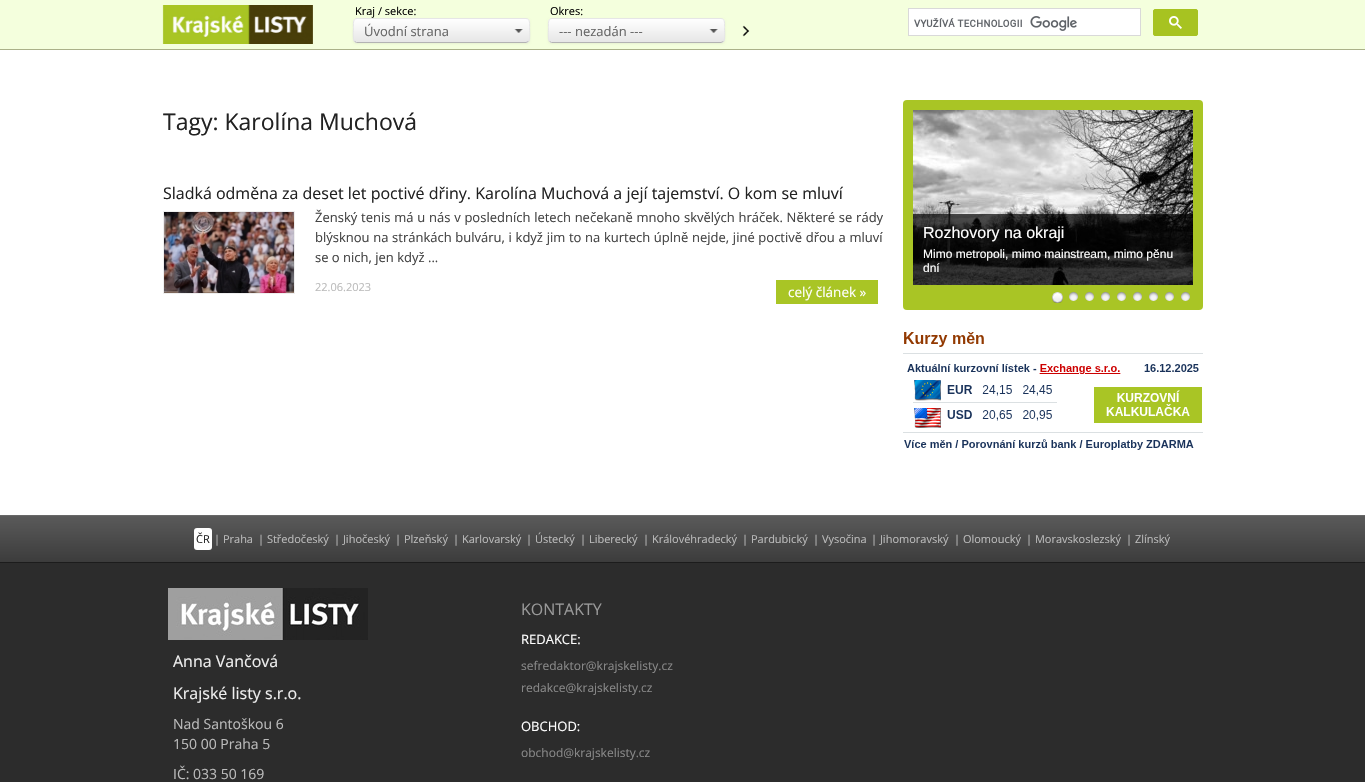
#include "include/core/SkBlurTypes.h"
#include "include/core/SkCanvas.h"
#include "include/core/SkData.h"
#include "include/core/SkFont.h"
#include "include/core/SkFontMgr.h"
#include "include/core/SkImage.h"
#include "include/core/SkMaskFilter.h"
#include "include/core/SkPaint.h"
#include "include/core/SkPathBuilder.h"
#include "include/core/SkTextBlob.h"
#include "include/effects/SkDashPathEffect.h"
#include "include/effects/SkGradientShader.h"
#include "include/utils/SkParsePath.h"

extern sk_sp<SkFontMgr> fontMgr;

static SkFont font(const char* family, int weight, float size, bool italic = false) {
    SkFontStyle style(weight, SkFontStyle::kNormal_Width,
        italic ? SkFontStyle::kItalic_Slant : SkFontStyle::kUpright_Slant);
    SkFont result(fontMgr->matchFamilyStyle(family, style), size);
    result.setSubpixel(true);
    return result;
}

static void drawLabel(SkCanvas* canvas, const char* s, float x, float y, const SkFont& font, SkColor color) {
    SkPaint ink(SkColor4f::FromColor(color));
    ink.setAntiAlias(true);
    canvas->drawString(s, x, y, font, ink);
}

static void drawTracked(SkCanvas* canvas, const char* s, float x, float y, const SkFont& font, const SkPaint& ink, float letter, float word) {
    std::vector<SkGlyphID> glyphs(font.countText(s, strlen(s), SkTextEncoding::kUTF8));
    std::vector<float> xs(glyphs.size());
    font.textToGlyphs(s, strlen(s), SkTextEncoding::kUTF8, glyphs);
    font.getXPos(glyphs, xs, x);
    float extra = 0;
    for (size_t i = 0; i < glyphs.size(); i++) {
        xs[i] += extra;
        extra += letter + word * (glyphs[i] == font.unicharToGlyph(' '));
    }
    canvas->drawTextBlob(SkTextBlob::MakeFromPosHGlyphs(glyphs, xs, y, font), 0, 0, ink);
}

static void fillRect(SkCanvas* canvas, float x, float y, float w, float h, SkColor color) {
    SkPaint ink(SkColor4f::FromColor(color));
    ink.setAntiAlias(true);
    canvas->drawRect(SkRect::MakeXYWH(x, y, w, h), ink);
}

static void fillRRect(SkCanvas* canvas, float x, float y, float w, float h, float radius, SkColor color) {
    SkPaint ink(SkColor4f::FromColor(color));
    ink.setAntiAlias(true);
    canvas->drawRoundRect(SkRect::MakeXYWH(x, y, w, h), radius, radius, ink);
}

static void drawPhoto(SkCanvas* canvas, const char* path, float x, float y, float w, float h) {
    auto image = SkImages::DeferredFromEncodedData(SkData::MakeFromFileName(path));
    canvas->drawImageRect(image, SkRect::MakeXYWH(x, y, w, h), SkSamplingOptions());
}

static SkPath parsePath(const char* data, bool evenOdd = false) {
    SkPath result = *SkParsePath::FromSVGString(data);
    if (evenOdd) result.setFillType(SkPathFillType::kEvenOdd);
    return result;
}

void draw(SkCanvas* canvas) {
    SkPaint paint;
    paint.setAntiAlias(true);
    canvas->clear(0xFFFFFFFF);
    fillRect(canvas, 0, 0, 1365, 49, 0xFFF4FFDD);
    fillRect(canvas, 0, 49, 1365, 1, 0xFFAAB188);
    drawPhoto(canvas, "assets/img1.png", 162, 5, 151, 39);
    SkFont font1 = font("Open Sans", 400, 11);
    drawLabel(canvas, "Kraj / sekce:", 355, 15, font1, 0xFF000000);
    paint.setColor(0x0D000000);
    paint.setMaskFilter(SkMaskFilter::MakeBlur(kNormal_SkBlurStyle, 1));
    canvas->drawRoundRect(SkRect::MakeXYWH(353, 19, 177, 25), 4, 4, paint);
    paint.setMaskFilter(nullptr);
    canvas->save();
    canvas->clipPath(parsePath("M357 18H526C528 18 530 20 530 22V39C530 41 528 43 526 43H357C355 43 353 41 353 39V22C353 20 355 18 357 18Z"), true);
    {
        const SkColor colors[] = {0xFFFFFFFF, 0xFFE6E6E6};
        const float stops[] = {0, 1};
        const SkPoint ends[] = {{442, 19}, {442, 42}};
        paint.setShader(SkGradientShader::MakeLinear(ends, colors, stops, 2, SkTileMode::kClamp));
        paint.setAlpha(255);
    }
    canvas->drawRect(SkRect::MakeXYWH(353, 19, 177, 23), paint);
    {
        const SkColor colors[] = {0xFFFFFFFF, 0xFFE6E6E6};
        const float stops[] = {0, 1};
        const SkPoint ends[] = {{442, 42}, {442, 65}};
        paint.setShader(SkGradientShader::MakeLinear(ends, colors, stops, 2, SkTileMode::kClamp));
        paint.setAlpha(255);
    }
    canvas->drawRect(SkRect::MakeXYWH(353, 42, 177, 1), paint);
    canvas->restore();
    paint.setStroke(true);
    paint.setStrokeWidth(1);
    paint.setShader(nullptr);
    paint.setColor(0xFFB3B3B3);
    canvas->drawPath(parsePath("M528.5 41.5L526 42.5H356.5L354.5 41.5"), paint);
    paint.setColor(0xFFE6E6E6);
    canvas->drawPath(parsePath("M354.5 41.5C352.5 39 353.5 30.5 353.5 27.5C353.5 25 352.5 18.5 357 18.5H526C530.5 18.5 529.5 25 529.5 27.5C529.5 30.5 530.5 39 528.5 41.5"), paint);
    SkFont font2 = font("Open Sans", 400, 13);
    drawLabel(canvas, "Úvodní strana", 364, 36, font2, 0xFF666666);
    drawPhoto(canvas, "assets/img2.png", 514, 29, 9, 4);
    drawLabel(canvas, "Okres:", 550, 15, font1, 0xFF000000);
    paint.setStroke(false);
    paint.setColor(0x0D000000);
    paint.setMaskFilter(SkMaskFilter::MakeBlur(kNormal_SkBlurStyle, 1));
    canvas->drawRoundRect(SkRect::MakeXYWH(548, 19, 177, 25), 4, 4, paint);
    paint.setMaskFilter(nullptr);
    canvas->save();
    canvas->clipPath(parsePath("M552 18H721C723 18 725 20 725 22V39C725 41 723 43 721 43H552C550 43 548 41 548 39V22C548 20 550 18 552 18Z"), true);
    {
        const SkColor colors[] = {0xFFFFFFFF, 0xFFE6E6E6};
        const float stops[] = {0, 1};
        const SkPoint ends[] = {{637, 19}, {637, 42}};
        paint.setShader(SkGradientShader::MakeLinear(ends, colors, stops, 2, SkTileMode::kClamp));
        paint.setAlpha(255);
    }
    canvas->drawRect(SkRect::MakeXYWH(548, 19, 177, 23), paint);
    {
        const SkColor colors[] = {0xFFFFFFFF, 0xFFE6E6E6};
        const float stops[] = {0, 1};
        const SkPoint ends[] = {{637, 42}, {637, 65}};
        paint.setShader(SkGradientShader::MakeLinear(ends, colors, stops, 2, SkTileMode::kClamp));
        paint.setAlpha(255);
    }
    canvas->drawRect(SkRect::MakeXYWH(548, 42, 177, 1), paint);
    canvas->restore();
    paint.setStroke(true);
    paint.setShader(nullptr);
    paint.setColor(0xFFB3B3B3);
    canvas->drawPath(parsePath("M723.5 41.5L721 42.5H551.5L549.5 41.5"), paint);
    paint.setColor(0xFFE6E6E6);
    canvas->drawPath(parsePath("M549.5 41.5C547.5 39 548.5 30.5 548.5 27.5C548.5 25 547.5 18.5 552 18.5H721C725.5 18.5 724.5 25 724.5 27.5C724.5 30.5 725.5 39 723.5 41.5"), paint);
    drawLabel(canvas, "--- nezadán ---", 559, 36, font2, 0xFF666666);
    drawPhoto(canvas, "assets/img2.png", 709, 29, 9, 4);
    drawPhoto(canvas, "assets/img3.png", 742, 25, 8, 12);
    paint.setStroke(false);
    paint.setColor(0xFFFFFFFF);
    canvas->drawRect(SkRect::MakeXYWH(908.5f, 8.5f, 232, 27), paint);
    paint.setStroke(true);
    paint.setColor(0xFFD9D9D9);
    canvas->drawRect(SkRect::MakeXYWH(908.5f, 8.5f, 232, 27), paint);
    drawPhoto(canvas, "assets/img4.png", 914, 16, 163, 15);
    paint.setStroke(false);
    paint.setColor(0xFFA7C321);
    canvas->drawRoundRect(SkRect::MakeXYWH(1153.5f, 9.5f, 44, 26), 1.5f, 1.5f, paint);
    paint.setStroke(true);
    canvas->drawRoundRect(SkRect::MakeXYWH(1153.5f, 9.5f, 44, 26), 1.5f, 1.5f, paint);
    drawPhoto(canvas, "assets/img5.png", 1169, 16, 13, 13);
    canvas->save();
    canvas->clipRect(SkRect::MakeXYWH(163, 90, 740, 254));
    SkFont font3 = font("Open Sans", 400, 23);
    drawLabel(canvas, "Tagy: Karolína Muchová", 163, 130, font3, 0xFF222222);
    canvas->restore();
    SkFont font4 = font("Open Sans", 400, 16);
    drawLabel(canvas, "Sladká odměna za deset let poctivé dřiny. Karolína Muchová a její tajemství. O kom se mluví", 163, 199, font4, 0xFF222222);
    paint.setColor(0xFFEEEEEE);
    canvas->drawRect(SkRect::MakeXYWH(163.5f, 211.5f, 131, 82), paint);
    drawPhoto(canvas, "assets/img6.png", 164, 212, 130, 81);
    paint.setStroke(false);
    paint.setColor(0xFF444444);
    drawTracked(canvas, "Ženský tenis má u nás v posledních letech nečekaně mnoho skvělých hráček. Některé se rády", 315, 222, font2, paint, 0, 0.4f);
    drawTracked(canvas, "blýsknou na stránkách bulváru, i když jim to na kurtech úplně nejde, jiné poctivě dřou a mluví", 315, 242, font2, paint, 0, 0.3f);
    drawLabel(canvas, "se o nich, jen když ...", 315, 262, font2, 0xFF444444);
    drawLabel(canvas, "22.06.2023", 315, 291, font1, 0xFFBBBBBB);
    fillRect(canvas, 776, 280, 102, 24, 0xFFA9C525);
    SkFont font5 = font("Open Sans", 400, 13.5f);
    drawLabel(canvas, "celý článek »", 788, 297, font5, 0xFFFFFFFF);
    fillRRect(canvas, 903, 100, 300, 210, 4, 0xFFA9C525);
    drawPhoto(canvas, "assets/img7.png", 913, 110, 280, 175);
    fillRect(canvas, 913, 214, 280, 71, 0xB3000000);
    SkFont font6 = font("Liberation Sans", 400, 16);
    drawLabel(canvas, "Rozhovory na okraji", 923, 238, font6, 0xFFFFFFFF);
    SkFont font7 = font("Liberation Sans", 400, 12);
    drawLabel(canvas, "Mimo metropoli, mimo mainstream, mimo pěnu", 923, 258, font7, 0xFFFFFFFF);
    drawLabel(canvas, "dní", 923, 272, font7, 0xFFFFFFFF);
    drawPhoto(canvas, "assets/img8.png", 1052, 292, 11, 11);
    drawPhoto(canvas, "assets/img9.png", 1069, 292, 9, 9);
    drawPhoto(canvas, "assets/img9.png", 1085, 292, 9, 9);
    drawPhoto(canvas, "assets/img9.png", 1101, 292, 9, 9);
    drawPhoto(canvas, "assets/img9.png", 1117, 292, 9, 9);
    drawPhoto(canvas, "assets/img9.png", 1133, 292, 9, 9);
    drawPhoto(canvas, "assets/img9.png", 1149, 292, 9, 9);
    drawPhoto(canvas, "assets/img9.png", 1165, 292, 9, 9);
    drawPhoto(canvas, "assets/img9.png", 1181, 292, 9, 9);
    drawPhoto(canvas, "assets/img10.png", 903, 332, 300, 118);
    fillRect(canvas, 0, 563, 1365, 219, 0xFF2C2C2C);
    {
        const SkColor colors[] = {0xFF5A5A5A, 0xFF3C3C3C};
        const float stops[] = {0, 1};
        const SkPoint ends[] = {{683, 516}, {683, 562}};
        paint.setShader(SkGradientShader::MakeLinear(ends, colors, stops, 2, SkTileMode::kClamp));
        paint.setAlpha(255);
    }
    canvas->drawRect(SkRect::MakeXYWH(0, 516, 1365, 46), paint);
    fillRect(canvas, 0, 515, 1365, 1, 0xFF686868);
    fillRect(canvas, 0, 562, 1365, 1, 0xFF1C1C1C);
    fillRRect(canvas, 194, 528, 18, 22, 3, 0xFFFFFFFF);
    drawLabel(canvas, "ČR", 196, 543, font1, 0xFF222222);
    drawLabel(canvas, "| Praha", 214, 543, font1, 0xFFBBBBBB);
    drawLabel(canvas, "| Středočeský", 258, 543, font1, 0xFFBBBBBB);
    drawLabel(canvas, "| Jihočeský", 334, 543, font1, 0xFFBBBBBB);
    drawLabel(canvas, "| Plzeňský", 395, 543, font1, 0xFFBBBBBB);
    drawLabel(canvas, "| Karlovarský", 453, 543, font1, 0xFFBBBBBB);
    drawLabel(canvas, "| Ústecký", 526, 543, font1, 0xFFBBBBBB);
    drawLabel(canvas, "| Liberecký", 580, 543, font1, 0xFFBBBBBB);
    drawLabel(canvas, "| Královéhradecký", 643, 543, font1, 0xFFBBBBBB);
    drawLabel(canvas, "| Pardubický", 742, 543, font1, 0xFFBBBBBB);
    drawLabel(canvas, "| Vysočina", 813, 543, font1, 0xFFBBBBBB);
    drawLabel(canvas, "| Jihomoravský", 871, 543, font1, 0xFFBBBBBB);
    drawLabel(canvas, "| Olomoucký", 954, 543, font1, 0xFFBBBBBB);
    drawLabel(canvas, "| Moravskoslezský", 1026, 543, font1, 0xFFBBBBBB);
    drawLabel(canvas, "| Zlínský", 1126, 543, font1, 0xFFBBBBBB);
    drawPhoto(canvas, "assets/img11.png", 168, 588, 200, 52);
    drawLabel(canvas, "Anna Vančová", 173, 667, font4, 0xFFEEEEEE);
    drawLabel(canvas, "Krajské listy s.r.o.", 173, 699, font4, 0xFFEEEEEE);
    SkFont font8 = font("Open Sans", 400, 14);
    drawLabel(canvas, "Nad Santoškou 6", 173, 729, font8, 0xFFBBBBBB);
    drawLabel(canvas, "150 00 Praha 5", 173, 749, font8, 0xFFBBBBBB);
    drawLabel(canvas, "IČ: 033 50 169", 173, 779, font8, 0xFFBBBBBB);
    drawLabel(canvas, "KONTAKTY", 521, 615, font4, 0xFF999999);
    drawLabel(canvas, "REDAKCE:", 521, 644, font2, 0xFFFFFFFF);
    SkFont font9 = font("Open Sans", 400, 12);
    drawLabel(canvas, "sefredaktor@krajskelisty.cz", 521, 670, font9, 0xFF888888);
    drawLabel(canvas, "redakce@krajskelisty.cz", 521, 692, font9, 0xFF888888);
    drawLabel(canvas, "OBCHOD:", 521, 731, font2, 0xFFFFFFFF);
    drawLabel(canvas, "obchod@krajskelisty.cz", 521, 757, font9, 0xFF888888);
}
